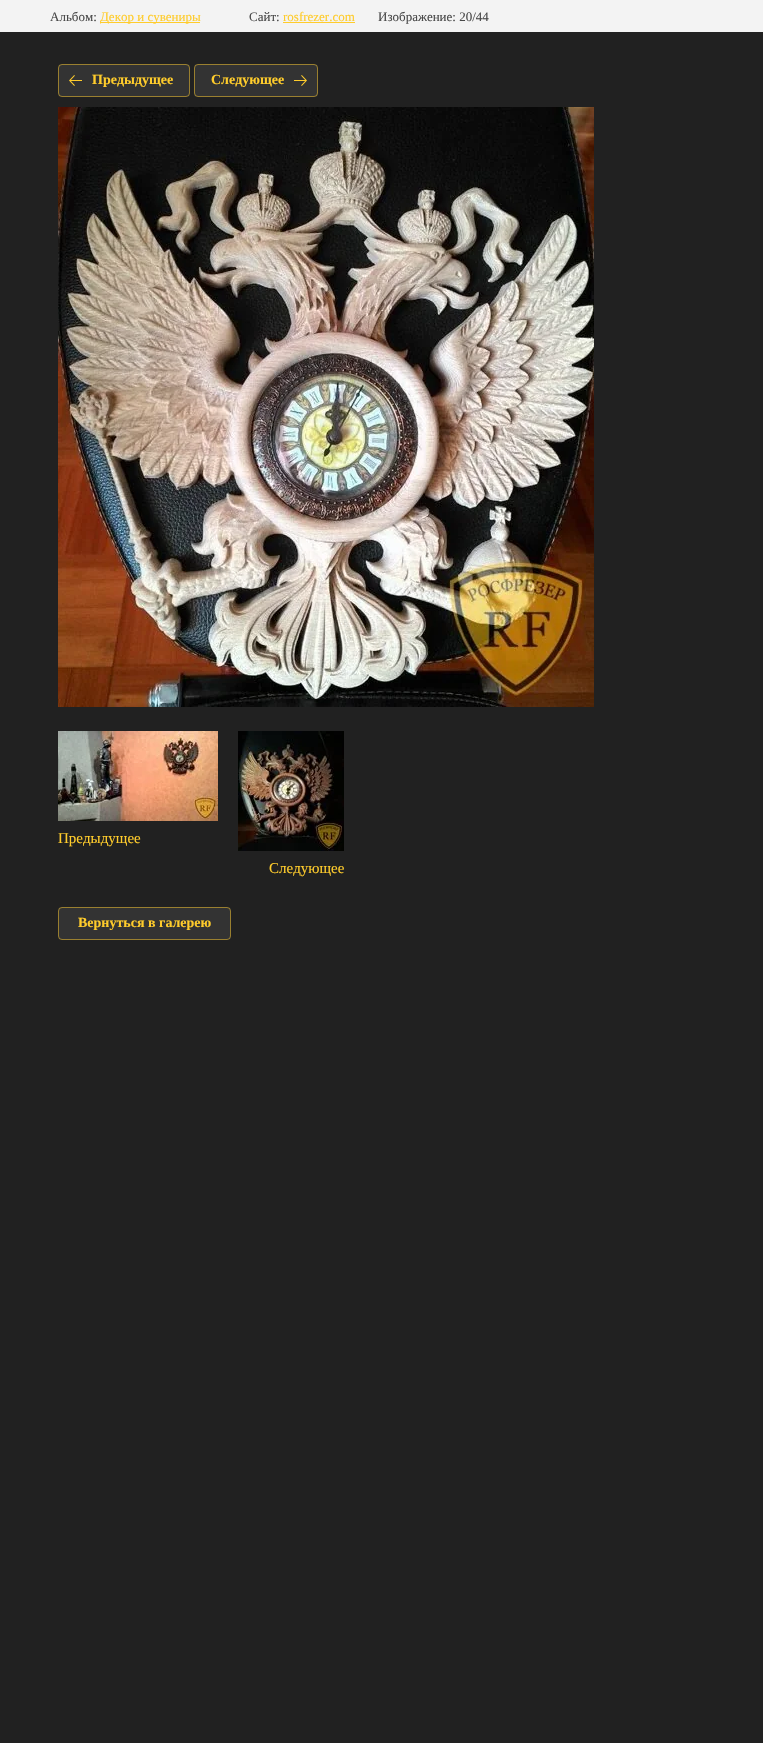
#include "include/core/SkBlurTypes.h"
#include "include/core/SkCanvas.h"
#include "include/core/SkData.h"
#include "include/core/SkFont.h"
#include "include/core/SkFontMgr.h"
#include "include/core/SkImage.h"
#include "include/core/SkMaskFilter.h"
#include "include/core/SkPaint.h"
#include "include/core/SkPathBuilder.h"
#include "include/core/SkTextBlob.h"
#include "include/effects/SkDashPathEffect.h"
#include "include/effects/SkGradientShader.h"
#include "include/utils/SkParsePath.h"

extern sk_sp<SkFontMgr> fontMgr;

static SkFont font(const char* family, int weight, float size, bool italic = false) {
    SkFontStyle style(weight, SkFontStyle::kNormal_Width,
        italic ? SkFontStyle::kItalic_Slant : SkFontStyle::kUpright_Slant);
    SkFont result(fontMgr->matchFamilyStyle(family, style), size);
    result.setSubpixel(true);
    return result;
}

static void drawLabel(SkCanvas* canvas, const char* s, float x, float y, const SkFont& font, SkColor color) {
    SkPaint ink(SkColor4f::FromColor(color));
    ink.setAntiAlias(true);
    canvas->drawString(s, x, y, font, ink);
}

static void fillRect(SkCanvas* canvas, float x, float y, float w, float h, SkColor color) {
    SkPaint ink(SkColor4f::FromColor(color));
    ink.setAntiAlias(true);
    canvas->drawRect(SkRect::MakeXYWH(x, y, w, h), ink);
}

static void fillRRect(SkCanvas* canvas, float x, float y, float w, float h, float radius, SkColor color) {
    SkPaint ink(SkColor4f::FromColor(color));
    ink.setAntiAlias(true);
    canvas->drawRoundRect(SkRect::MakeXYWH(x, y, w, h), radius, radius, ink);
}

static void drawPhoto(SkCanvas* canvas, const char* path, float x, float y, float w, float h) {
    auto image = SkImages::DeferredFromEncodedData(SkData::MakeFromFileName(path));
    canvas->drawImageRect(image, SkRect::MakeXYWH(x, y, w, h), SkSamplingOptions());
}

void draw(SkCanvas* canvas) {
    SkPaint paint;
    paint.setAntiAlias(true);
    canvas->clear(0xFF212121);
    fillRect(canvas, 0, 0, 763, 32, 0xFFF3F3F3);
    SkFont font1 = font("Liberation Serif", 400, 13);
    drawLabel(canvas, "Альбом:", 50, 21, font1, 0xFF484848);
    fillRect(canvas, 100, 22, 100, 1, 0xFFFFCC2B);
    drawLabel(canvas, "Декор и сувениры", 100, 21, font1, 0xFFFFCC2B);
    drawLabel(canvas, "Сайт:", 249, 21, font1, 0xFF484848);
    drawLabel(canvas, "rosfrezer.com", 283, 21, font1, 0xFFFFCC2B);
    fillRect(canvas, 283, 22, 72, 1, 0xFFFFCC2B);
    drawLabel(canvas, "Изображение: 20/44", 378, 21, font1, 0xFF484848);
    fillRRect(canvas, 58, 64, 132, 33, 4, 0xFF333333);
    paint.setStroke(true);
    paint.setStrokeWidth(1);
    paint.setColor(0x80FFCC2B);
    canvas->drawRoundRect(SkRect::MakeXYWH(58.5f, 64.5f, 131, 32), 3.5f, 3.5f, paint);
    drawPhoto(canvas, "assets/img1.png", 69, 75, 13, 11);
    SkFont font2 = font("Liberation Serif", 700, 14);
    drawLabel(canvas, "Предыдущее", 92, 84, font2, 0xFFFFCC2B);
    fillRRect(canvas, 194, 64, 124, 33, 4, 0xFF333333);
    canvas->drawRoundRect(SkRect::MakeXYWH(194.5f, 64.5f, 123, 32), 3.5f, 3.5f, paint);
    drawLabel(canvas, "Следующее", 211, 84, font2, 0xFFFFCC2B);
    drawPhoto(canvas, "assets/img2.png", 294, 75, 13, 11);
    drawPhoto(canvas, "assets/img3.png", 58, 107, 536, 600);
    drawPhoto(canvas, "assets/img4.png", 58, 731, 160, 90);
    SkFont font3 = font("Liberation Serif", 400, 15);
    drawLabel(canvas, "Предыдущее", 58, 843, font3, 0xFFFFCC2B);
    drawPhoto(canvas, "assets/img5.png", 238, 731, 106, 120);
    drawLabel(canvas, "Следующее", 269, 873, font3, 0xFFFFCC2B);
    fillRRect(canvas, 58, 907, 173, 33, 4, 0xFF333333);
    canvas->drawRoundRect(SkRect::MakeXYWH(58.5f, 907.5f, 172, 32), 3.5f, 3.5f, paint);
    drawLabel(canvas, "Вернуться в галерею", 78, 927, font2, 0xFFFFCC2B);
}
